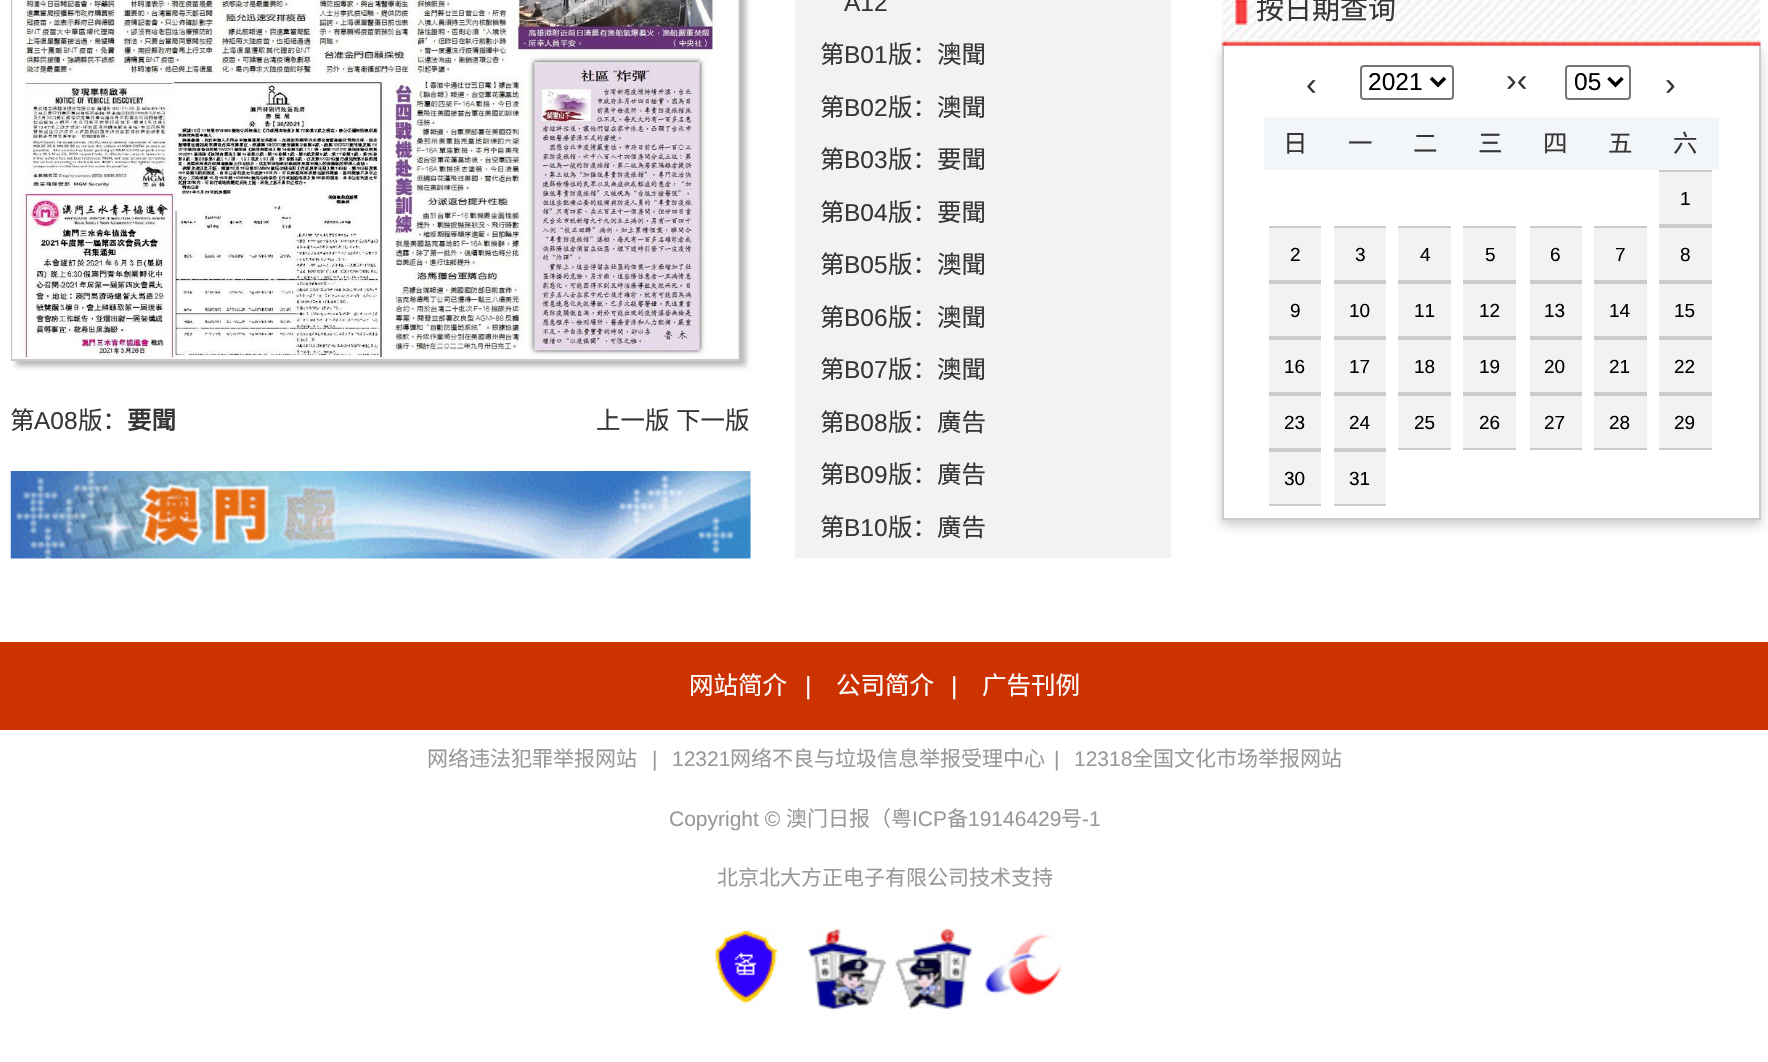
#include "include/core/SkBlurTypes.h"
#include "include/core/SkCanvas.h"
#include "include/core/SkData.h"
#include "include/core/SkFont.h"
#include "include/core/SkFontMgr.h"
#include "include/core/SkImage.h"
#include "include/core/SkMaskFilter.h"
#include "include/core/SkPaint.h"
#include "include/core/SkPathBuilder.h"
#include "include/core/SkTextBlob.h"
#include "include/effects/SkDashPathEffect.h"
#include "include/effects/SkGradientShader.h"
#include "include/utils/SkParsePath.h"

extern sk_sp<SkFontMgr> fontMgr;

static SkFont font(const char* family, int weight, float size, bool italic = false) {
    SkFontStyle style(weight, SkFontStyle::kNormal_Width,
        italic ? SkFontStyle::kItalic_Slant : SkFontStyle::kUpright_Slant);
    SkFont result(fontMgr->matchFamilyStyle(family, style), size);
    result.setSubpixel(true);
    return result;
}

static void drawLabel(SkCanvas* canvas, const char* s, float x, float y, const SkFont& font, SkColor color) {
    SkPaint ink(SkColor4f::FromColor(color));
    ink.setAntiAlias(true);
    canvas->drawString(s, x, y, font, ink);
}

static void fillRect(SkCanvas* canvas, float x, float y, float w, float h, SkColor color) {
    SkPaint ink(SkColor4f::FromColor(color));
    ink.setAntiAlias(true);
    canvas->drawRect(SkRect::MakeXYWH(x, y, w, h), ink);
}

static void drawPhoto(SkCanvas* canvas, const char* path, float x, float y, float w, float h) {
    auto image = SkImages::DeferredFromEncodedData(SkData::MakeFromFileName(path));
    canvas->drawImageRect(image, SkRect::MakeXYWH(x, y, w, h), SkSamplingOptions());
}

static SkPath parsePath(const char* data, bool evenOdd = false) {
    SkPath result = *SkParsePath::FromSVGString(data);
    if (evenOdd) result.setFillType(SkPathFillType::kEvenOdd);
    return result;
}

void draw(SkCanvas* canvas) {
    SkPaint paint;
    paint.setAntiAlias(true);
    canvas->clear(0xFFFFFFFF);
    paint.setColor(0xFFBCBCBC);
    paint.setMaskFilter(SkMaskFilter::MakeBlur(kNormal_SkBlurStyle, 2.5f));
    canvas->drawRect(SkRect::MakeXYWH(16, -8, 730, 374), paint);
    paint.setMaskFilter(nullptr);
    paint.setStroke(true);
    paint.setStrokeWidth(2);
    paint.setColor(0xFFCBCBCB);
    canvas->drawRect(SkRect::MakeXYWH(12, -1, 727, 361), paint);
    drawPhoto(canvas, "assets/img1.png", 12, 0, 727, 359);
    SkFont font1 = font("Noto Sans CJK SC", 400, 24.5f);
    drawLabel(canvas, "第", 10, 429, font1, 0xFF373535);
    SkFont font2 = font("Liberation Sans", 400, 24.5f);
    drawLabel(canvas, "A08", 34, 429, font2, 0xFF373535);
    drawLabel(canvas, "版：", 78, 429, font1, 0xFF373535);
    SkFont font3 = font("Noto Sans CJK SC", 700, 24.5f);
    drawLabel(canvas, "要聞", 127, 429, font3, 0xFF373535);
    drawLabel(canvas, "上一版", 596, 429, font1, 0xFF373535);
    drawLabel(canvas, "下一版", 676, 429, font1, 0xFF373535);
    drawPhoto(canvas, "assets/img2.png", 10, 471, 741, 88);
    fillRect(canvas, 795, 0, 376, 558, 0xFFF2F2F4);
    drawLabel(canvas, "A12", 844, 11, font2, 0xFF373535);
    drawLabel(canvas, "第", 820, 63, font1, 0xFF373535);
    drawLabel(canvas, "B01", 844, 63, font2, 0xFF373535);
    drawLabel(canvas, "版：澳聞", 888, 63, font1, 0xFF373535);
    drawLabel(canvas, "第", 820, 116, font1, 0xFF373535);
    drawLabel(canvas, "B02", 844, 116, font2, 0xFF373535);
    drawLabel(canvas, "版：澳聞", 888, 116, font1, 0xFF373535);
    drawLabel(canvas, "第", 820, 168, font1, 0xFF373535);
    drawLabel(canvas, "B03", 844, 168, font2, 0xFF373535);
    drawLabel(canvas, "版：要聞", 888, 168, font1, 0xFF373535);
    drawLabel(canvas, "第", 820, 221, font1, 0xFF373535);
    drawLabel(canvas, "B04", 844, 221, font2, 0xFF373535);
    drawLabel(canvas, "版：要聞", 888, 221, font1, 0xFF373535);
    drawLabel(canvas, "第", 820, 273, font1, 0xFF373535);
    drawLabel(canvas, "B05", 844, 273, font2, 0xFF373535);
    drawLabel(canvas, "版：澳聞", 888, 273, font1, 0xFF373535);
    drawLabel(canvas, "第", 820, 326, font1, 0xFF373535);
    drawLabel(canvas, "B06", 844, 326, font2, 0xFF373535);
    drawLabel(canvas, "版：澳聞", 888, 326, font1, 0xFF373535);
    drawLabel(canvas, "第", 820, 378, font1, 0xFF373535);
    drawLabel(canvas, "B07", 844, 378, font2, 0xFF373535);
    drawLabel(canvas, "版：澳聞", 888, 378, font1, 0xFF373535);
    drawLabel(canvas, "第", 820, 431, font1, 0xFF373535);
    drawLabel(canvas, "B08", 844, 431, font2, 0xFF373535);
    drawLabel(canvas, "版：廣告", 888, 431, font1, 0xFF373535);
    drawLabel(canvas, "第", 820, 483, font1, 0xFF373535);
    drawLabel(canvas, "B09", 844, 483, font2, 0xFF373535);
    drawLabel(canvas, "版：廣告", 888, 483, font1, 0xFF373535);
    drawLabel(canvas, "第", 820, 536, font1, 0xFF373535);
    drawLabel(canvas, "B10", 844, 536, font2, 0xFF373535);
    drawLabel(canvas, "版：廣告", 888, 536, font1, 0xFF373535);
    drawPhoto(canvas, "assets/img3.png", 1221, 0, 540, 46);
    SkFont font4 = font("Noto Sans CJK SC", 400, 28);
    drawLabel(canvas, "按日期查询", 1256, 19, font4, 0xFF373535);
    canvas->save();
    canvas->clipPath(parsePath("M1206 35H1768V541H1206ZM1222 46H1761V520H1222Z", true), true);
    paint.setStroke(false);
    paint.setColor(0xFFCCCCCC);
    paint.setMaskFilter(SkMaskFilter::MakeBlur(kNormal_SkBlurStyle, 5));
    canvas->drawRect(SkRect::MakeXYWH(1222, 51, 539, 474), paint);
    paint.setMaskFilter(nullptr);
    canvas->restore();
    fillRect(canvas, 1759, 46, 2, 474, 0xFFCCCCCC);
    fillRect(canvas, 1222, 518, 539, 2, 0xFFCCCCCC);
    fillRect(canvas, 1222, 46, 2, 474, 0xFFCCCCCC);
    SkFont font5 = font("Liberation Sans", 400, 32);
    drawLabel(canvas, "‹", 1306, 95, font5, 0xFF373535);
    paint.setStroke(true);
    paint.setColor(0xFF767676);
    canvas->drawRoundRect(SkRect::MakeXYWH(1361, 66, 92, 33), 3, 3, paint);
    paint.setStrokeWidth(3.5f);
    paint.setColor(0xFF000000);
    canvas->drawPath(parsePath("M1431 78L1438 85L1445 78"), paint);
    drawLabel(canvas, "2021", 1368, 90, font2, 0xFF000000);
    drawLabel(canvas, "›‹", 1506, 91, font5, 0xFF373535);
    paint.setStrokeWidth(2);
    paint.setColor(0xFF767676);
    canvas->drawRoundRect(SkRect::MakeXYWH(1566, 66, 64, 33), 3, 3, paint);
    paint.setStrokeWidth(3.5f);
    paint.setColor(0xFF000000);
    canvas->drawPath(parsePath("M1608.5 78L1615.5 85L1622.5 78"), paint);
    drawLabel(canvas, "05", 1574, 90, font2, 0xFF000000);
    drawLabel(canvas, "›", 1665, 95, font5, 0xFF373535);
    fillRect(canvas, 1264, 117, 455, 53, 0xFFF2F6F8);
    drawLabel(canvas, "日", 1283, 152, font1, 0xFF373535);
    drawLabel(canvas, "一", 1348, 152, font1, 0xFF373535);
    drawLabel(canvas, "二", 1413, 152, font1, 0xFF373535);
    drawLabel(canvas, "三", 1478, 152, font1, 0xFF373535);
    drawLabel(canvas, "四", 1543, 152, font1, 0xFF373535);
    drawLabel(canvas, "五", 1608, 152, font1, 0xFF373535);
    drawLabel(canvas, "六", 1673, 152, font1, 0xFF373535);
    fillRect(canvas, 1659, 172, 53, 52, 0xFFF2F2F3);
    fillRect(canvas, 1659, 170, 53, 2, 0xFFCBCBCB);
    fillRect(canvas, 1659, 224, 53, 4, 0xFFCBCBCB);
    SkFont font6 = font("Liberation Sans", 400, 19);
    drawLabel(canvas, "1", 1680, 205, font6, 0xFF000000);
    fillRect(canvas, 1269, 228, 52, 52, 0xFFF2F2F3);
    fillRect(canvas, 1269, 226, 52, 2, 0xFFCBCBCB);
    fillRect(canvas, 1269, 280, 52, 4, 0xFFCBCBCB);
    drawLabel(canvas, "2", 1290, 261, font6, 0xFF000000);
    fillRect(canvas, 1334, 228, 52, 52, 0xFFF2F2F3);
    fillRect(canvas, 1334, 226, 52, 2, 0xFFCBCBCB);
    fillRect(canvas, 1334, 280, 52, 4, 0xFFCBCBCB);
    drawLabel(canvas, "3", 1355, 261, font6, 0xFF000000);
    fillRect(canvas, 1398, 228, 53, 52, 0xFFF2F2F3);
    fillRect(canvas, 1398, 226, 53, 2, 0xFFCBCBCB);
    fillRect(canvas, 1398, 280, 53, 4, 0xFFCBCBCB);
    drawLabel(canvas, "4", 1420, 261, font6, 0xFF000000);
    fillRect(canvas, 1463, 228, 53, 52, 0xFFF2F2F3);
    fillRect(canvas, 1463, 226, 53, 2, 0xFFCBCBCB);
    fillRect(canvas, 1463, 280, 53, 4, 0xFFCBCBCB);
    drawLabel(canvas, "5", 1485, 261, font6, 0xFF000000);
    fillRect(canvas, 1530, 228, 52, 52, 0xFFF2F2F3);
    fillRect(canvas, 1530, 226, 52, 2, 0xFFCBCBCB);
    fillRect(canvas, 1530, 280, 52, 4, 0xFFCBCBCB);
    drawLabel(canvas, "6", 1550, 261, font6, 0xFF000000);
    fillRect(canvas, 1594, 228, 53, 52, 0xFFF2F2F3);
    fillRect(canvas, 1594, 226, 53, 2, 0xFFCBCBCB);
    fillRect(canvas, 1594, 280, 53, 4, 0xFFCBCBCB);
    drawLabel(canvas, "7", 1615, 261, font6, 0xFF000000);
    fillRect(canvas, 1659, 228, 53, 52, 0xFFF2F2F3);
    fillRect(canvas, 1659, 280, 53, 4, 0xFFCBCBCB);
    drawLabel(canvas, "8", 1680, 261, font6, 0xFF000000);
    fillRect(canvas, 1269, 284, 52, 52, 0xFFF2F2F3);
    fillRect(canvas, 1269, 336, 52, 4, 0xFFCBCBCB);
    drawLabel(canvas, "9", 1290, 317, font6, 0xFF000000);
    fillRect(canvas, 1334, 284, 52, 52, 0xFFF2F2F3);
    fillRect(canvas, 1334, 336, 52, 4, 0xFFCBCBCB);
    drawLabel(canvas, "10", 1349, 317, font6, 0xFF000000);
    fillRect(canvas, 1398, 284, 53, 52, 0xFFF2F2F3);
    fillRect(canvas, 1398, 336, 53, 4, 0xFFCBCBCB);
    drawLabel(canvas, "11", 1414, 317, font6, 0xFF000000);
    fillRect(canvas, 1463, 284, 53, 52, 0xFFF2F2F3);
    fillRect(canvas, 1463, 336, 53, 4, 0xFFCBCBCB);
    drawLabel(canvas, "12", 1479, 317, font6, 0xFF000000);
    fillRect(canvas, 1530, 284, 52, 52, 0xFFF2F2F3);
    fillRect(canvas, 1530, 336, 52, 4, 0xFFCBCBCB);
    drawLabel(canvas, "13", 1544, 317, font6, 0xFF000000);
    fillRect(canvas, 1594, 284, 53, 52, 0xFFF2F2F3);
    fillRect(canvas, 1594, 336, 53, 4, 0xFFCBCBCB);
    drawLabel(canvas, "14", 1609, 317, font6, 0xFF000000);
    fillRect(canvas, 1659, 284, 53, 52, 0xFFF2F2F3);
    fillRect(canvas, 1659, 336, 53, 4, 0xFFCBCBCB);
    drawLabel(canvas, "15", 1674, 317, font6, 0xFF000000);
    fillRect(canvas, 1269, 340, 52, 52, 0xFFF2F2F3);
    fillRect(canvas, 1269, 392, 52, 4, 0xFFCBCBCB);
    drawLabel(canvas, "16", 1284, 373, font6, 0xFF000000);
    fillRect(canvas, 1334, 340, 52, 52, 0xFFF2F2F3);
    fillRect(canvas, 1334, 392, 52, 4, 0xFFCBCBCB);
    drawLabel(canvas, "17", 1349, 373, font6, 0xFF000000);
    fillRect(canvas, 1398, 340, 53, 52, 0xFFF2F2F3);
    fillRect(canvas, 1398, 392, 53, 4, 0xFFCBCBCB);
    drawLabel(canvas, "18", 1414, 373, font6, 0xFF000000);
    fillRect(canvas, 1463, 340, 53, 52, 0xFFF2F2F3);
    fillRect(canvas, 1463, 392, 53, 4, 0xFFCBCBCB);
    drawLabel(canvas, "19", 1479, 373, font6, 0xFF000000);
    fillRect(canvas, 1530, 340, 52, 52, 0xFFF2F2F3);
    fillRect(canvas, 1530, 392, 52, 4, 0xFFCBCBCB);
    drawLabel(canvas, "20", 1544, 373, font6, 0xFF000000);
    fillRect(canvas, 1594, 340, 53, 52, 0xFFF2F2F3);
    fillRect(canvas, 1594, 392, 53, 4, 0xFFCBCBCB);
    drawLabel(canvas, "21", 1609, 373, font6, 0xFF000000);
    fillRect(canvas, 1659, 340, 53, 52, 0xFFF2F2F3);
    fillRect(canvas, 1659, 392, 53, 4, 0xFFCBCBCB);
    drawLabel(canvas, "22", 1674, 373, font6, 0xFF000000);
    fillRect(canvas, 1269, 396, 52, 52, 0xFFF2F2F3);
    fillRect(canvas, 1269, 448, 52, 4, 0xFFCBCBCB);
    drawLabel(canvas, "23", 1284, 429, font6, 0xFF000000);
    fillRect(canvas, 1334, 396, 52, 52, 0xFFF2F2F3);
    fillRect(canvas, 1334, 448, 52, 4, 0xFFCBCBCB);
    drawLabel(canvas, "24", 1349, 429, font6, 0xFF000000);
    fillRect(canvas, 1398, 396, 53, 52, 0xFFF2F2F3);
    fillRect(canvas, 1398, 448, 53, 2, 0xFFCBCBCB);
    drawLabel(canvas, "25", 1414, 429, font6, 0xFF000000);
    fillRect(canvas, 1463, 396, 53, 52, 0xFFF2F2F3);
    fillRect(canvas, 1463, 448, 53, 2, 0xFFCBCBCB);
    drawLabel(canvas, "26", 1479, 429, font6, 0xFF000000);
    fillRect(canvas, 1530, 396, 52, 52, 0xFFF2F2F3);
    fillRect(canvas, 1530, 448, 52, 2, 0xFFCBCBCB);
    drawLabel(canvas, "27", 1544, 429, font6, 0xFF000000);
    fillRect(canvas, 1594, 396, 53, 52, 0xFFF2F2F3);
    fillRect(canvas, 1594, 448, 53, 2, 0xFFCBCBCB);
    drawLabel(canvas, "28", 1609, 429, font6, 0xFF000000);
    fillRect(canvas, 1659, 396, 53, 52, 0xFFF2F2F3);
    fillRect(canvas, 1659, 448, 53, 2, 0xFFCBCBCB);
    drawLabel(canvas, "29", 1674, 429, font6, 0xFF000000);
    fillRect(canvas, 1269, 452, 52, 52, 0xFFF2F2F3);
    fillRect(canvas, 1269, 504, 52, 2, 0xFFCBCBCB);
    drawLabel(canvas, "30", 1284, 485, font6, 0xFF000000);
    fillRect(canvas, 1334, 452, 52, 52, 0xFFF2F2F3);
    fillRect(canvas, 1334, 504, 52, 2, 0xFFCBCBCB);
    drawLabel(canvas, "31", 1349, 485, font6, 0xFF000000);
    fillRect(canvas, 0, 642, 1768, 88, 0xFFCC3300);
    drawLabel(canvas, "网站简介", 689, 694, font1, 0xFFFFFFFF);
    drawLabel(canvas, "|", 805, 694, font2, 0xFFFFFFFF);
    drawLabel(canvas, "公司简介", 836, 694, font1, 0xFFFFFFFF);
    drawLabel(canvas, "|", 951, 694, font2, 0xFFFFFFFF);
    drawLabel(canvas, "广告刊例", 982, 694, font1, 0xFFFFFFFF);
    SkFont font7 = font("Noto Sans CJK SC", 400, 21);
    drawLabel(canvas, "网络违法犯罪举报网站", 427, 766, font7, 0xFF999999);
    SkFont font8 = font("Liberation Sans", 400, 21);
    drawLabel(canvas, "|", 652, 766, font8, 0xFF999999);
    drawLabel(canvas, "12321", 672, 766, font8, 0xFF999999);
    drawLabel(canvas, "网络不良与垃圾信息举报受理中心", 730, 766, font7, 0xFF999999);
    drawLabel(canvas, "|", 1054, 766, font8, 0xFF999999);
    drawLabel(canvas, "12318", 1074, 766, font8, 0xFF999999);
    drawLabel(canvas, "全国文化市场举报网站", 1132, 766, font7, 0xFF999999);
    drawLabel(canvas, "Copyright ©", 669, 826, font8, 0xFF999999);
    drawLabel(canvas, "澳门日报（粤", 786, 826, font7, 0xFF999999);
    drawLabel(canvas, "ICP", 912, 826, font8, 0xFF999999);
    drawLabel(canvas, "备", 947, 826, font7, 0xFF999999);
    drawLabel(canvas, "19146429", 968, 826, font8, 0xFF999999);
    drawLabel(canvas, "号", 1061, 826, font7, 0xFF999999);
    drawLabel(canvas, "-1", 1082, 826, font8, 0xFF999999);
    drawLabel(canvas, "北京北大方正电子有限公司技术支持", 717, 885, font7, 0xFF999999);
    drawPhoto(canvas, "assets/img4.png", 714, 927, 349, 84);
}
